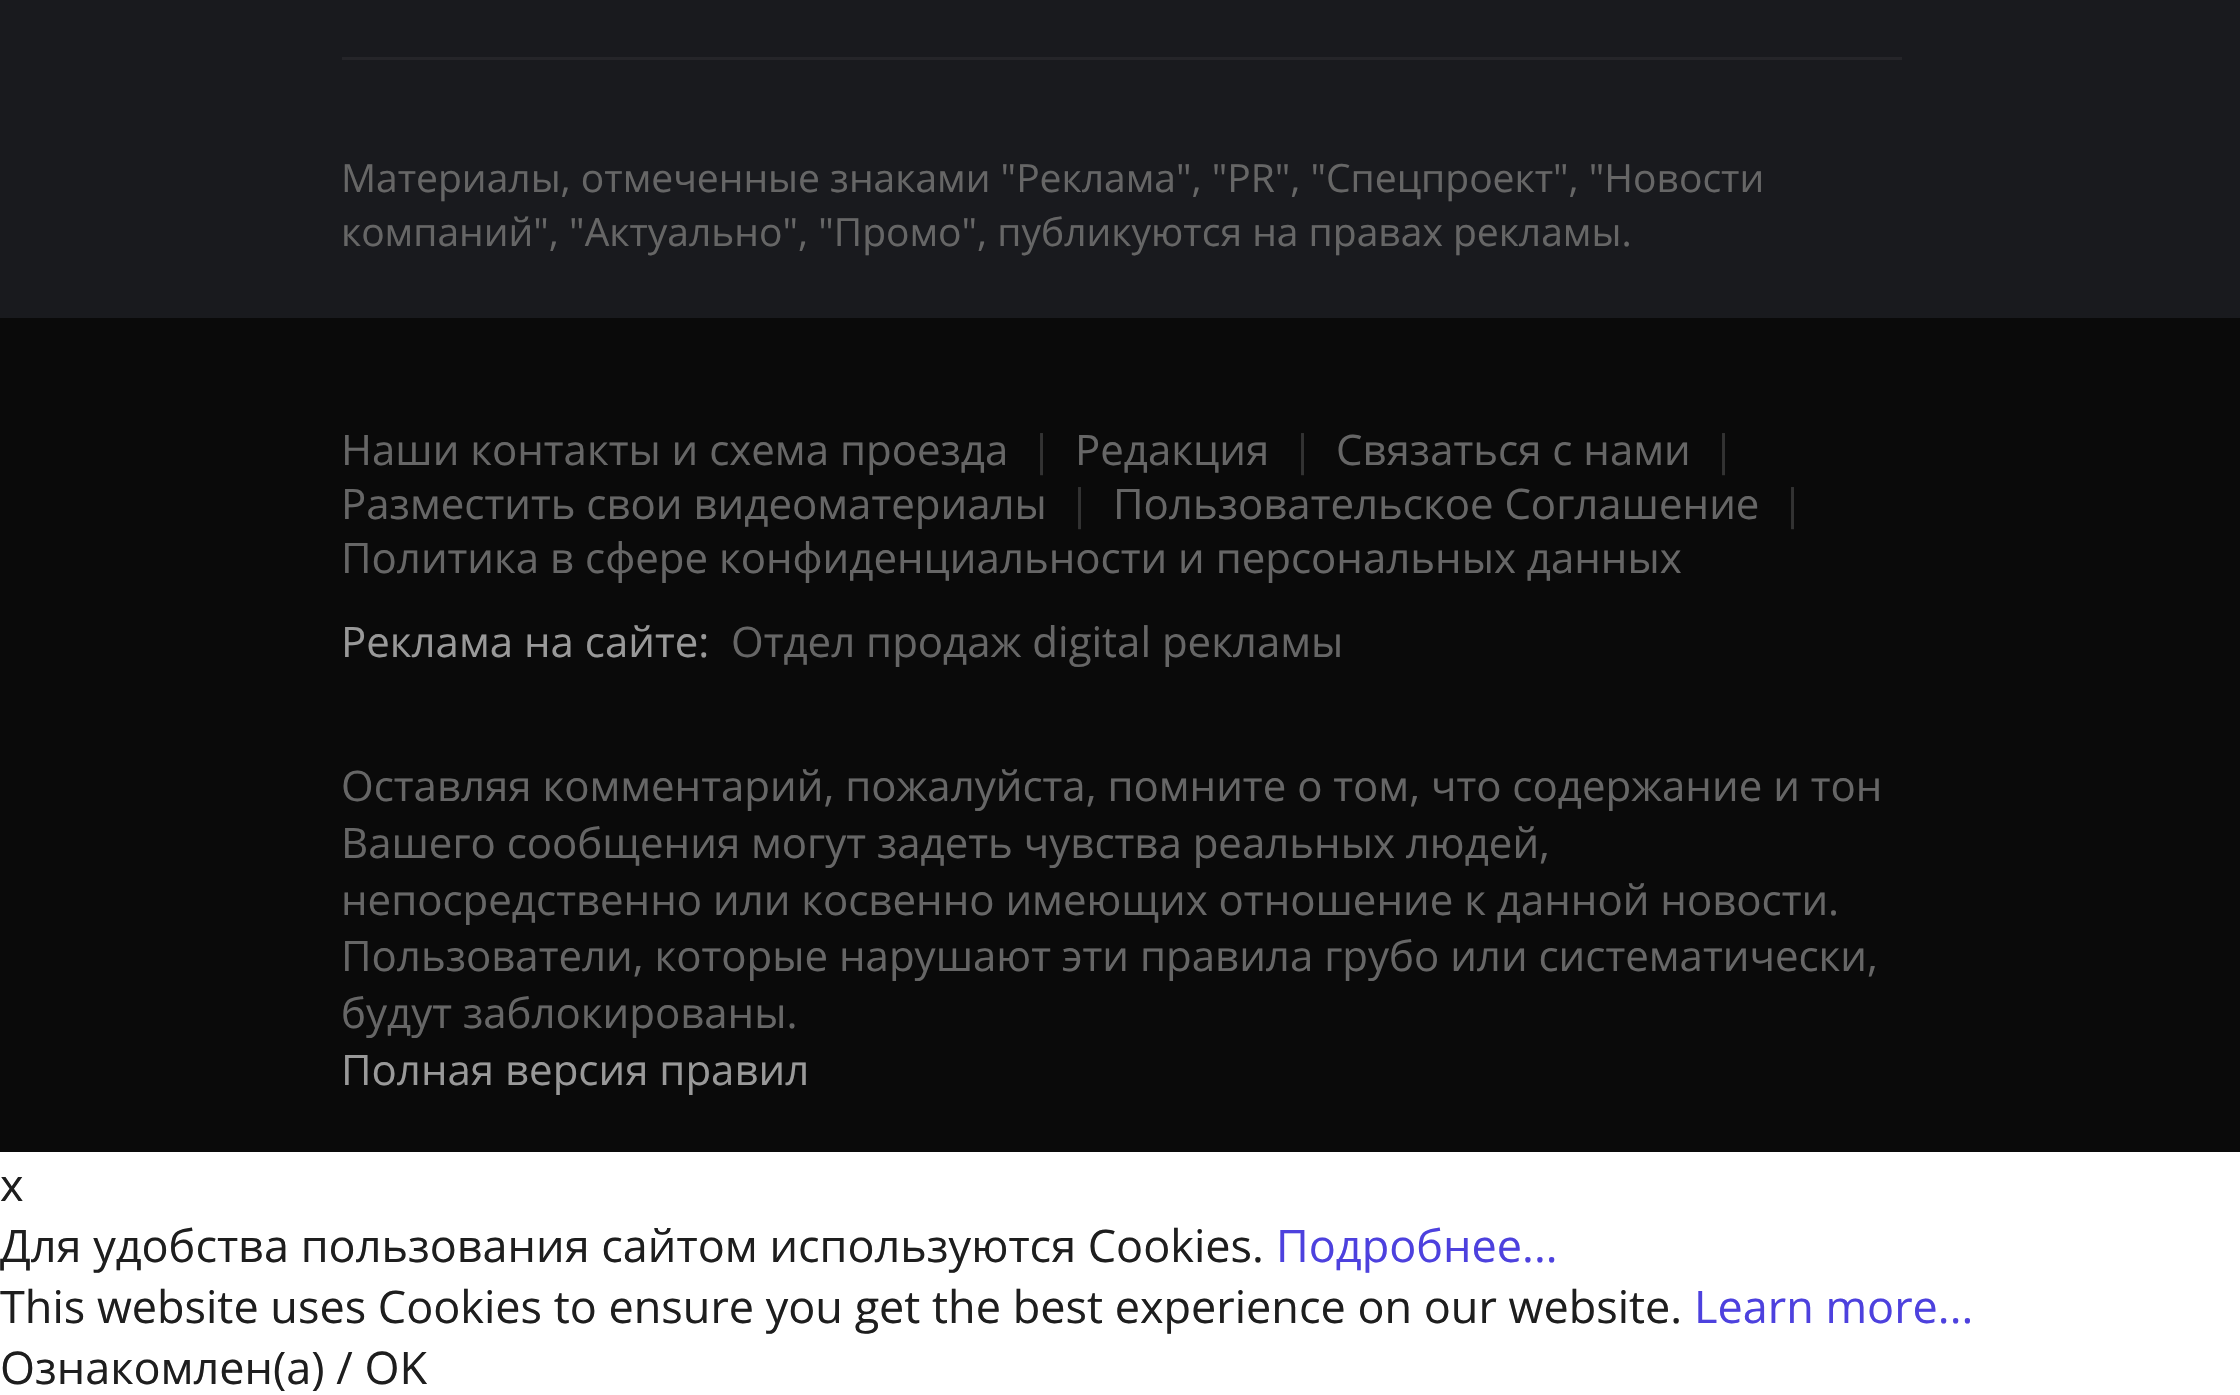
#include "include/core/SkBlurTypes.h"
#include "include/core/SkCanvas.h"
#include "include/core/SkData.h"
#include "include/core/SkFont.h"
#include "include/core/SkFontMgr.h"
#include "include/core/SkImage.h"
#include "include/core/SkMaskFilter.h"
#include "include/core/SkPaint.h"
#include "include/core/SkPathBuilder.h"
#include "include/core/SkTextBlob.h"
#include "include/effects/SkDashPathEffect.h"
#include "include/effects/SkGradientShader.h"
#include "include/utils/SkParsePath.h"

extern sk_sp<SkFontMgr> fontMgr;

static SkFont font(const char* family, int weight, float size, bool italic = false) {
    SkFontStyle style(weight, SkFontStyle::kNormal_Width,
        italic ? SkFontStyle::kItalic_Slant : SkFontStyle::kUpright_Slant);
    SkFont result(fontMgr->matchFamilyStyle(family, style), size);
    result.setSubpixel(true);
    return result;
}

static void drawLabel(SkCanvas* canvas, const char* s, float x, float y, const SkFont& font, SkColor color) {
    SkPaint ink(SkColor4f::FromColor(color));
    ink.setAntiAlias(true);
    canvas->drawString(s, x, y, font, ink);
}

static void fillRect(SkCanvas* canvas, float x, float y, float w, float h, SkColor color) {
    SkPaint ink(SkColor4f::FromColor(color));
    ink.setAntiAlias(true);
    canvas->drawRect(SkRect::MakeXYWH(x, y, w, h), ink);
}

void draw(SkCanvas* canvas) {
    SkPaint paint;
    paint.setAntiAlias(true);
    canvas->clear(0xFFFFFFFF);
    fillRect(canvas, 0, 0, 2240, 318, 0xFF191A1E);
    fillRect(canvas, 342, 57, 1560, 3, 0xFF252529);
    SkFont font1 = font("Open Sans", 400, 39);
    drawLabel(canvas, "Материалы, отмеченные знаками \"Реклама\", \"PR\", \"Спецпроект\", \"Новости", 341, 192, font1, 0xFF666666);
    drawLabel(canvas, "компаний\", \"Актуально\", \"Промо\", публикуются на правах рекламы.", 341, 246, font1, 0xFF666666);
    fillRect(canvas, 0, 318, 2240, 834, 0xFF0A0A0A);
    SkFont font2 = font("Open Sans", 400, 42);
    drawLabel(canvas, "Наши контакты и схема проезда", 341, 465, font2, 0xFF666666);
    drawLabel(canvas, "|", 1030, 465, font2, 0xFF333333);
    drawLabel(canvas, "Редакция", 1075, 465, font2, 0xFF666666);
    drawLabel(canvas, "|", 1291, 465, font2, 0xFF333333);
    drawLabel(canvas, "Связаться с нами", 1336, 465, font2, 0xFF666666);
    drawLabel(canvas, "|", 1712, 465, font2, 0xFF333333);
    drawLabel(canvas, "Разместить свои видеоматериалы", 341, 519, font2, 0xFF666666);
    drawLabel(canvas, "|", 1068, 519, font2, 0xFF333333);
    drawLabel(canvas, "Пользовательское Соглашение", 1113, 519, font2, 0xFF666666);
    drawLabel(canvas, "|", 1781, 519, font2, 0xFF333333);
    drawLabel(canvas, "Политика в сфере конфиденциальности и персональных данных", 341, 573, font2, 0xFF666666);
    drawLabel(canvas, "Реклама на сайте:", 341, 657, font2, 0xFF999999);
    drawLabel(canvas, "Отдел продаж digital рекламы", 731, 657, font2, 0xFF666666);
    drawLabel(canvas, "Оставляя комментарий, пожалуйста, помните о том, что содержание и тон", 341, 801, font2, 0xFF666666);
    drawLabel(canvas, "Вашего сообщения могут задеть чувства реальных людей,", 341, 858, font2, 0xFF666666);
    drawLabel(canvas, "непосредственно или косвенно имеющих отношение к данной новости.", 341, 915, font2, 0xFF666666);
    drawLabel(canvas, "Пользователи, которые нарушают эти правила грубо или систематически,", 341, 971, font2, 0xFF666666);
    drawLabel(canvas, "будут заблокированы.", 341, 1028, font2, 0xFF666666);
    drawLabel(canvas, "Полная версия правил", 341, 1085, font2, 0xFF999999);
    SkFont font3 = font("Open Sans", 400, 45);
    drawLabel(canvas, "x", 0, 1201, font3, 0xFF1E1E1E);
    drawLabel(canvas, "Для удобства пользования сайтом используются Cookies.", 0, 1262, font3, 0xFF1E1E1E);
    drawLabel(canvas, "Подробнее...", 1276, 1262, font3, 0xFF4D41DE);
    drawLabel(canvas, "This website uses Cookies to ensure you get the best experience on our website.", 0, 1323, font3, 0xFF1E1E1E);
    drawLabel(canvas, "Learn more...", 1694, 1323, font3, 0xFF4D41DE);
    drawLabel(canvas, "Ознакомлен(а) / OK", 0, 1384, font3, 0xFF1E1E1E);
}
